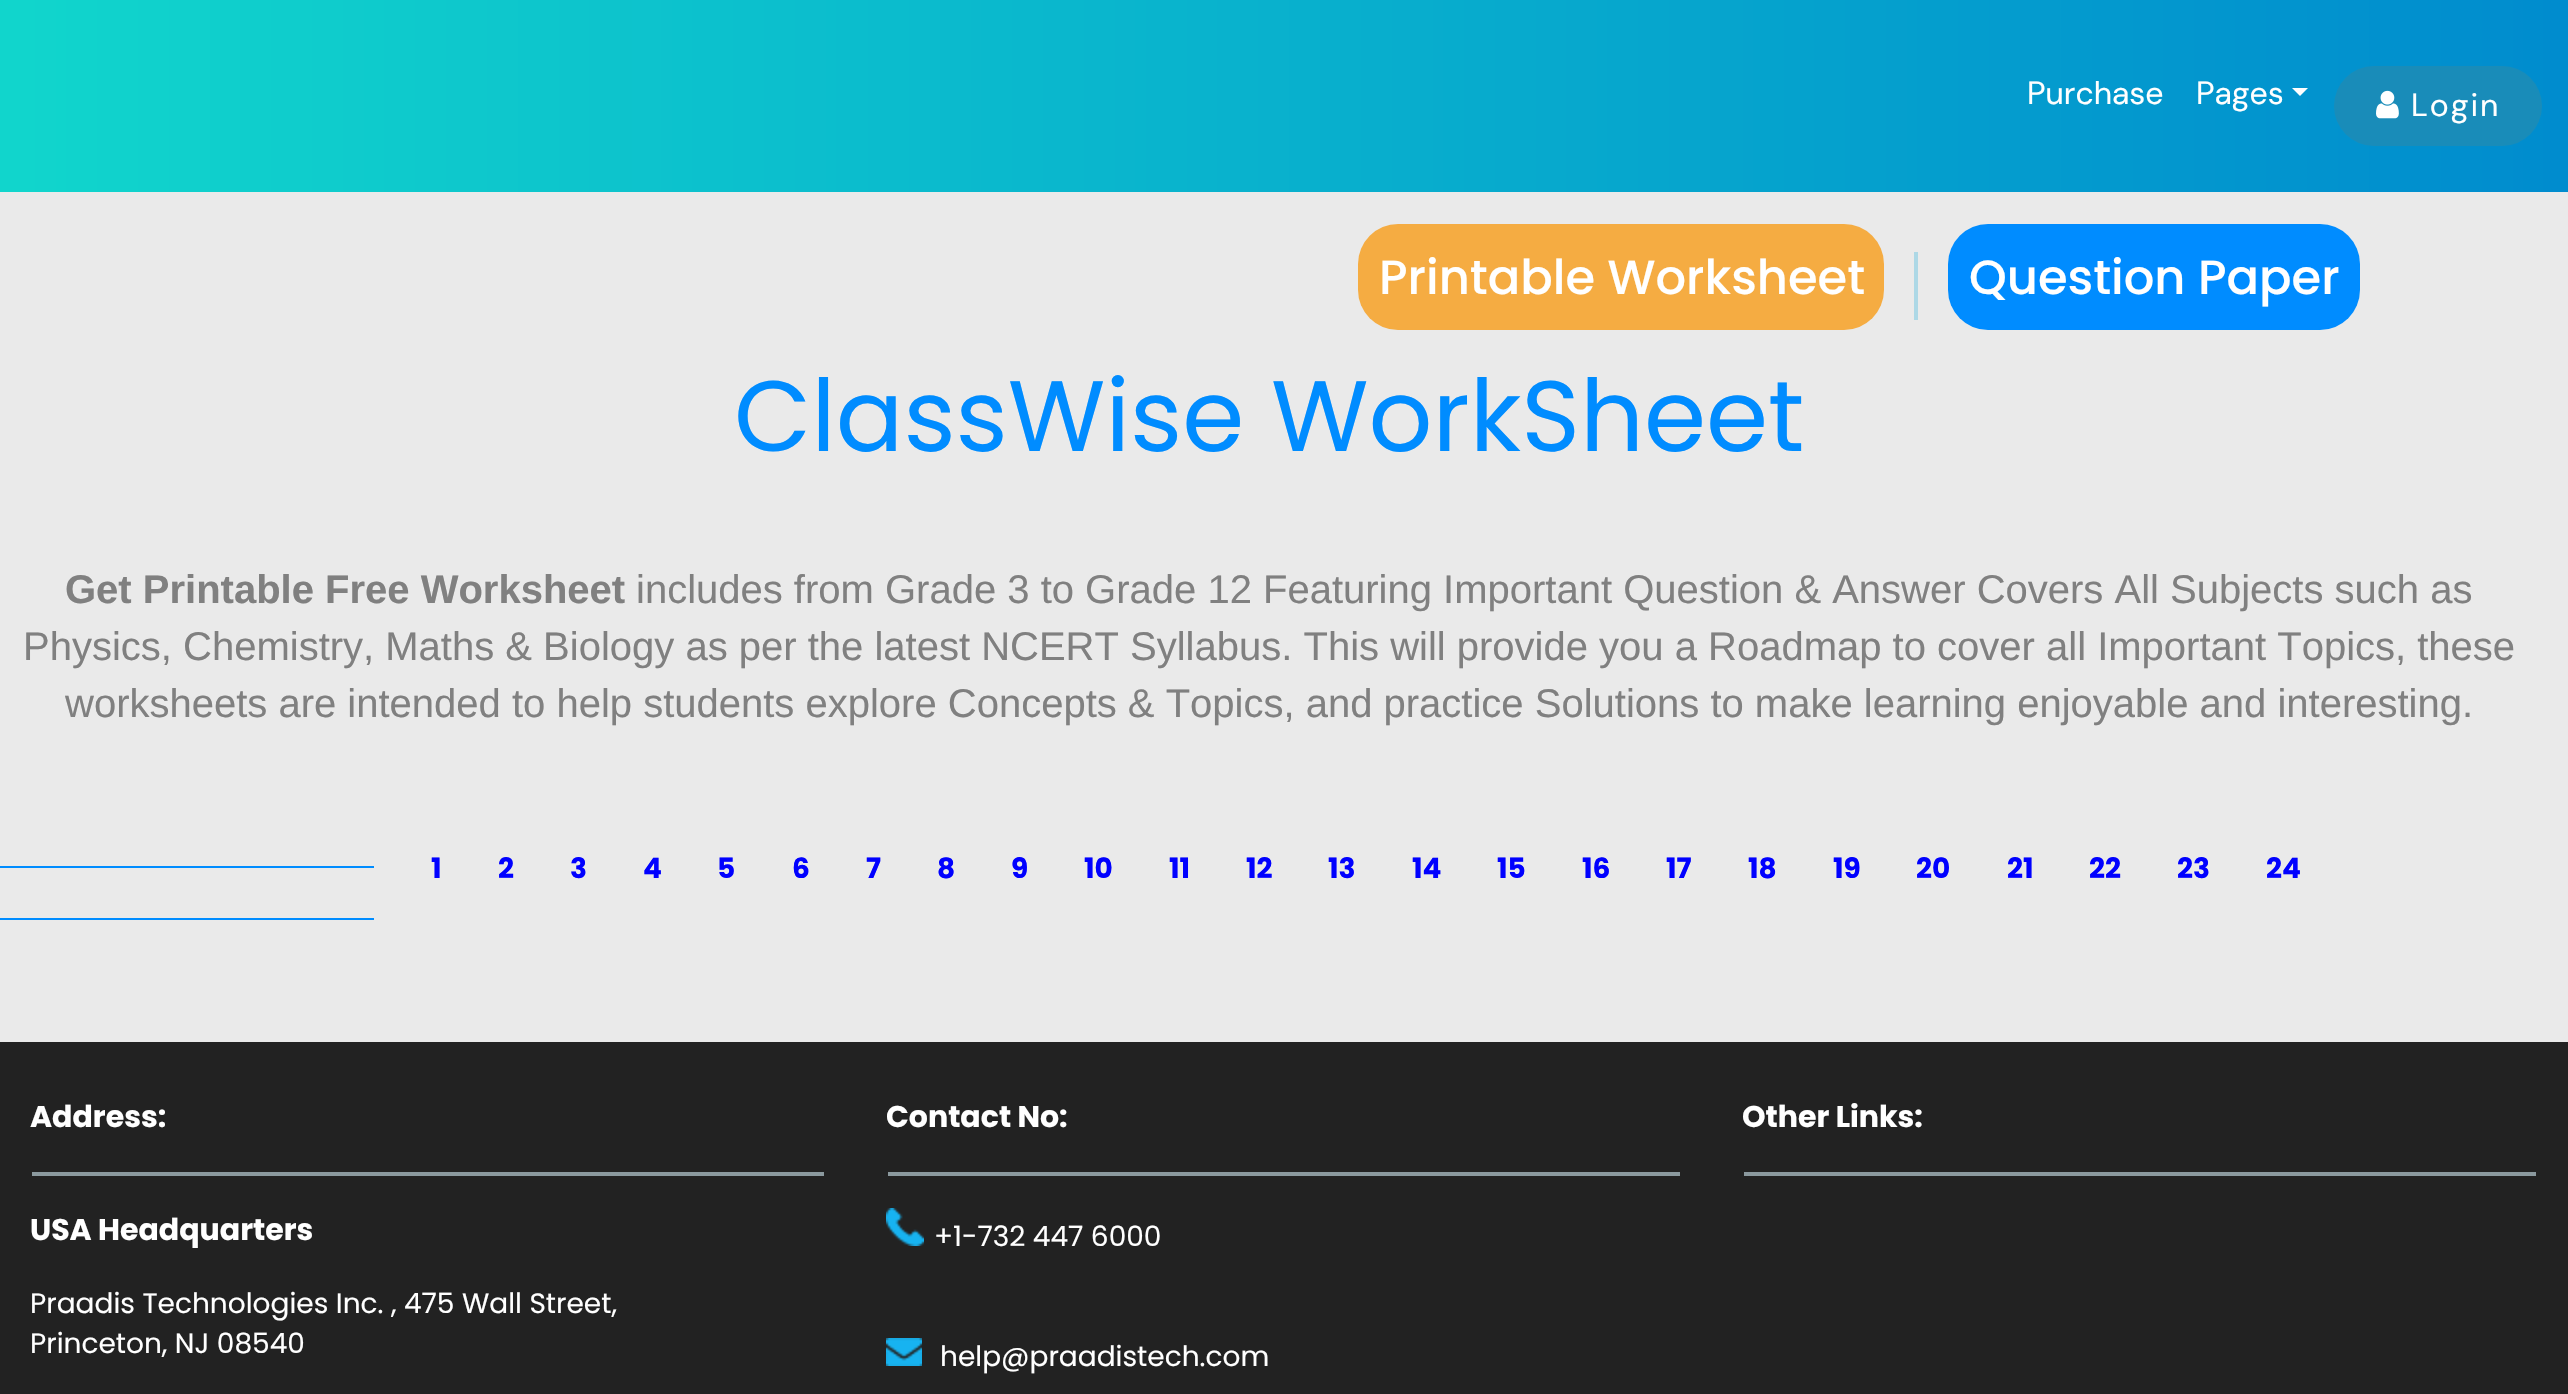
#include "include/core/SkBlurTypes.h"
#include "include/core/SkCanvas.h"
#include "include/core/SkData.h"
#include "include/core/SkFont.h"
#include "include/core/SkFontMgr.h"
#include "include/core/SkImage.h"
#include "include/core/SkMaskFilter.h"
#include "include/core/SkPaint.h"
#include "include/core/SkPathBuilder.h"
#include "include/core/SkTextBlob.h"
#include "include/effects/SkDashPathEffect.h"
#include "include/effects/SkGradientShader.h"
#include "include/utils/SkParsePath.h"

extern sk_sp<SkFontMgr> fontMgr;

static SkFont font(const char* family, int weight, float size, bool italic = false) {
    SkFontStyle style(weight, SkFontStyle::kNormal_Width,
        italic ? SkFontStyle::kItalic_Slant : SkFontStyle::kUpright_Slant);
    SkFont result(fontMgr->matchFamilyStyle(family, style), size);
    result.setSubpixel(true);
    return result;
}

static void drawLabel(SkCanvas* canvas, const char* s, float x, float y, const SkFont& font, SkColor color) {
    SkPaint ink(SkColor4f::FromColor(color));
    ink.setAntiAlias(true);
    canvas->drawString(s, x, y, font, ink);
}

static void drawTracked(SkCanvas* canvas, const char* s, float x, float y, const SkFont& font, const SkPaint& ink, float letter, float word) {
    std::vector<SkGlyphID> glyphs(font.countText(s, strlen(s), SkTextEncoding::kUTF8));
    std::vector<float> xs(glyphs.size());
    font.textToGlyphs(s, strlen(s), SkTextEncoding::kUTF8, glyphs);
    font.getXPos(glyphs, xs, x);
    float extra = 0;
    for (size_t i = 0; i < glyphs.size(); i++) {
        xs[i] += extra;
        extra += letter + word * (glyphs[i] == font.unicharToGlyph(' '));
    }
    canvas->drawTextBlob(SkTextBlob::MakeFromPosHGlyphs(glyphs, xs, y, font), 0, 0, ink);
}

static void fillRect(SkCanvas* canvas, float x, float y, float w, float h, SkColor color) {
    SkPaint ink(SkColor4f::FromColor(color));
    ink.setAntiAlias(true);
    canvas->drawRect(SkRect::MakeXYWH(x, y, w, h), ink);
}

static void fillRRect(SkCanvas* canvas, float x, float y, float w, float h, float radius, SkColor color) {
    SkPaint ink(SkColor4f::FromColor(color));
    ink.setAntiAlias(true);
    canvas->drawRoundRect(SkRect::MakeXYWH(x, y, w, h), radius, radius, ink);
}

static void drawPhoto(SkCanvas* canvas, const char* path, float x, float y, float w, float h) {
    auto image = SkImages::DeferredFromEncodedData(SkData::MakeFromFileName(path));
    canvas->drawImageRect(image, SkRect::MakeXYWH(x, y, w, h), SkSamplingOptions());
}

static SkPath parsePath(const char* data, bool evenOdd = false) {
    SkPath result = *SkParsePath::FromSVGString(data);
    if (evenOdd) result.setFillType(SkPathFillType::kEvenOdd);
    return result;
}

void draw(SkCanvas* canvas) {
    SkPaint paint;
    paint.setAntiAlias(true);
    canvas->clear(0xFFFFFFFF);
    drawPhoto(canvas, "assets/img1.png", 0, 0, 2568, 192);
    SkFont font1 = font("DM Sans", 400, 32);
    drawLabel(canvas, "Purchase", 2027, 104, font1, 0xFFFFFFFF);
    drawLabel(canvas, "Pages", 2196, 104, font1, 0xFFFFFFFF);
    paint.setColor(0xFFFFFFFF);
    canvas->drawPath(parsePath("M2292 88H2308L2300 96Z"), paint);
    fillRRect(canvas, 2334, 66, 208, 80, 40, 0xFF198CB9);
    drawPhoto(canvas, "assets/img2.png", 2376, 90, 23, 29);
    drawTracked(canvas, "Login", 2411, 116, font1, paint, 2, 0);
    fillRect(canvas, 0, 192, 2568, 850, 0xFFEAEAEA);
    fillRect(canvas, 1914, 252, 4, 68, 0xFFADD8E6);
    fillRRect(canvas, 1358, 224, 526, 106, 40, 0xFFF5AC42);
    SkFont font2 = font("Poppins", 500, 48);
    drawLabel(canvas, "Printable Worksheet", 1379, 294, font2, 0xFFFFFFFF);
    fillRRect(canvas, 1948, 224, 412, 106, 40, 0xFF008CFF);
    drawLabel(canvas, "Question Paper", 1969, 294, font2, 0xFFFFFFFF);
    SkFont font3 = font("Poppins", 400, 100);
    drawLabel(canvas, "ClassWise WorkSheet", 734, 451, font3, 0xFF008CFF);
    SkFont font4 = font("Liberation Sans", 700, 40);
    drawLabel(canvas, "Get Printable Free Worksheet", 65, 603, font4, 0xFF808080);
    SkFont font5 = font("Liberation Sans", 400, 40);
    drawLabel(canvas, "includes from Grade 3 to Grade 12 Featuring Important Question & Answer Covers All Subjects such as", 636, 603, font5, 0xFF808080);
    drawLabel(canvas, "Physics, Chemistry, Maths & Biology as per the latest NCERT Syllabus. This will provide you a Roadmap to cover all Important Topics, these", 23, 660, font5, 0xFF808080);
    drawLabel(canvas, "worksheets are intended to help students explore Concepts & Topics, and practice Solutions to make learning enjoyable and interesting.", 65, 717, font5, 0xFF808080);
    fillRect(canvas, 0, 866, 374, 2, 0xFF008CFF);
    fillRect(canvas, 0, 918, 374, 2, 0xFF008CFF);
    SkFont font6 = font("Poppins", 700, 28);
    drawLabel(canvas, "1", 431, 878, font6, 0xFF0000FF);
    drawLabel(canvas, "2", 498, 878, font6, 0xFF0000FF);
    drawLabel(canvas, "3", 570, 878, font6, 0xFF0000FF);
    drawLabel(canvas, "4", 643, 878, font6, 0xFF0000FF);
    drawLabel(canvas, "5", 717, 878, font6, 0xFF0000FF);
    drawLabel(canvas, "6", 792, 878, font6, 0xFF0000FF);
    drawLabel(canvas, "7", 866, 878, font6, 0xFF0000FF);
    drawLabel(canvas, "8", 937, 878, font6, 0xFF0000FF);
    drawLabel(canvas, "9", 1011, 878, font6, 0xFF0000FF);
    drawLabel(canvas, "10", 1084, 878, font6, 0xFF0000FF);
    drawLabel(canvas, "11", 1169, 878, font6, 0xFF0000FF);
    drawLabel(canvas, "12", 1246, 878, font6, 0xFF0000FF);
    drawLabel(canvas, "13", 1328, 878, font6, 0xFF0000FF);
    drawLabel(canvas, "14", 1412, 878, font6, 0xFF0000FF);
    drawLabel(canvas, "15", 1497, 878, font6, 0xFF0000FF);
    drawLabel(canvas, "16", 1582, 878, font6, 0xFF0000FF);
    drawLabel(canvas, "17", 1666, 878, font6, 0xFF0000FF);
    drawLabel(canvas, "18", 1748, 878, font6, 0xFF0000FF);
    drawLabel(canvas, "19", 1833, 878, font6, 0xFF0000FF);
    drawLabel(canvas, "20", 1916, 878, font6, 0xFF0000FF);
    drawLabel(canvas, "21", 2007, 878, font6, 0xFF0000FF);
    drawLabel(canvas, "22", 2089, 878, font6, 0xFF0000FF);
    drawLabel(canvas, "23", 2177, 878, font6, 0xFF0000FF);
    drawLabel(canvas, "24", 2266, 878, font6, 0xFF0000FF);
    fillRect(canvas, 0, 1042, 2568, 352, 0xFF222222);
    SkFont font7 = font("Poppins", 700, 30);
    drawLabel(canvas, "Address:", 30, 1127, font7, 0xFFFFFFFF);
    fillRect(canvas, 32, 1172, 792, 4, 0xFF8B999E);
    drawLabel(canvas, "USA Headquarters", 30, 1240, font7, 0xFFFFFFFF);
    SkFont font8 = font("Poppins", 400, 28);
    drawLabel(canvas, "Praadis Technologies Inc. , 475 Wall Street,", 30, 1313, font8, 0xFFFFFFFF);
    drawLabel(canvas, "Princeton, NJ 08540", 30, 1353, font8, 0xFFFFFFFF);
    drawLabel(canvas, "Contact No:", 886, 1127, font7, 0xFFFFFFFF);
    fillRect(canvas, 888, 1172, 792, 4, 0xFF8B999E);
    drawPhoto(canvas, "assets/img3.png", 886, 1208, 38, 38);
    drawLabel(canvas, "+1-732 447 6000", 934, 1246, font8, 0xFFFFFFFF);
    drawPhoto(canvas, "assets/img4.png", 886, 1338, 36, 28);
    drawLabel(canvas, "help@praadistech.com", 940, 1366, font8, 0xFFFFFFFF);
    drawLabel(canvas, "Other Links:", 1742, 1127, font7, 0xFFFFFFFF);
    fillRect(canvas, 1744, 1172, 792, 4, 0xFF8B999E);
}
